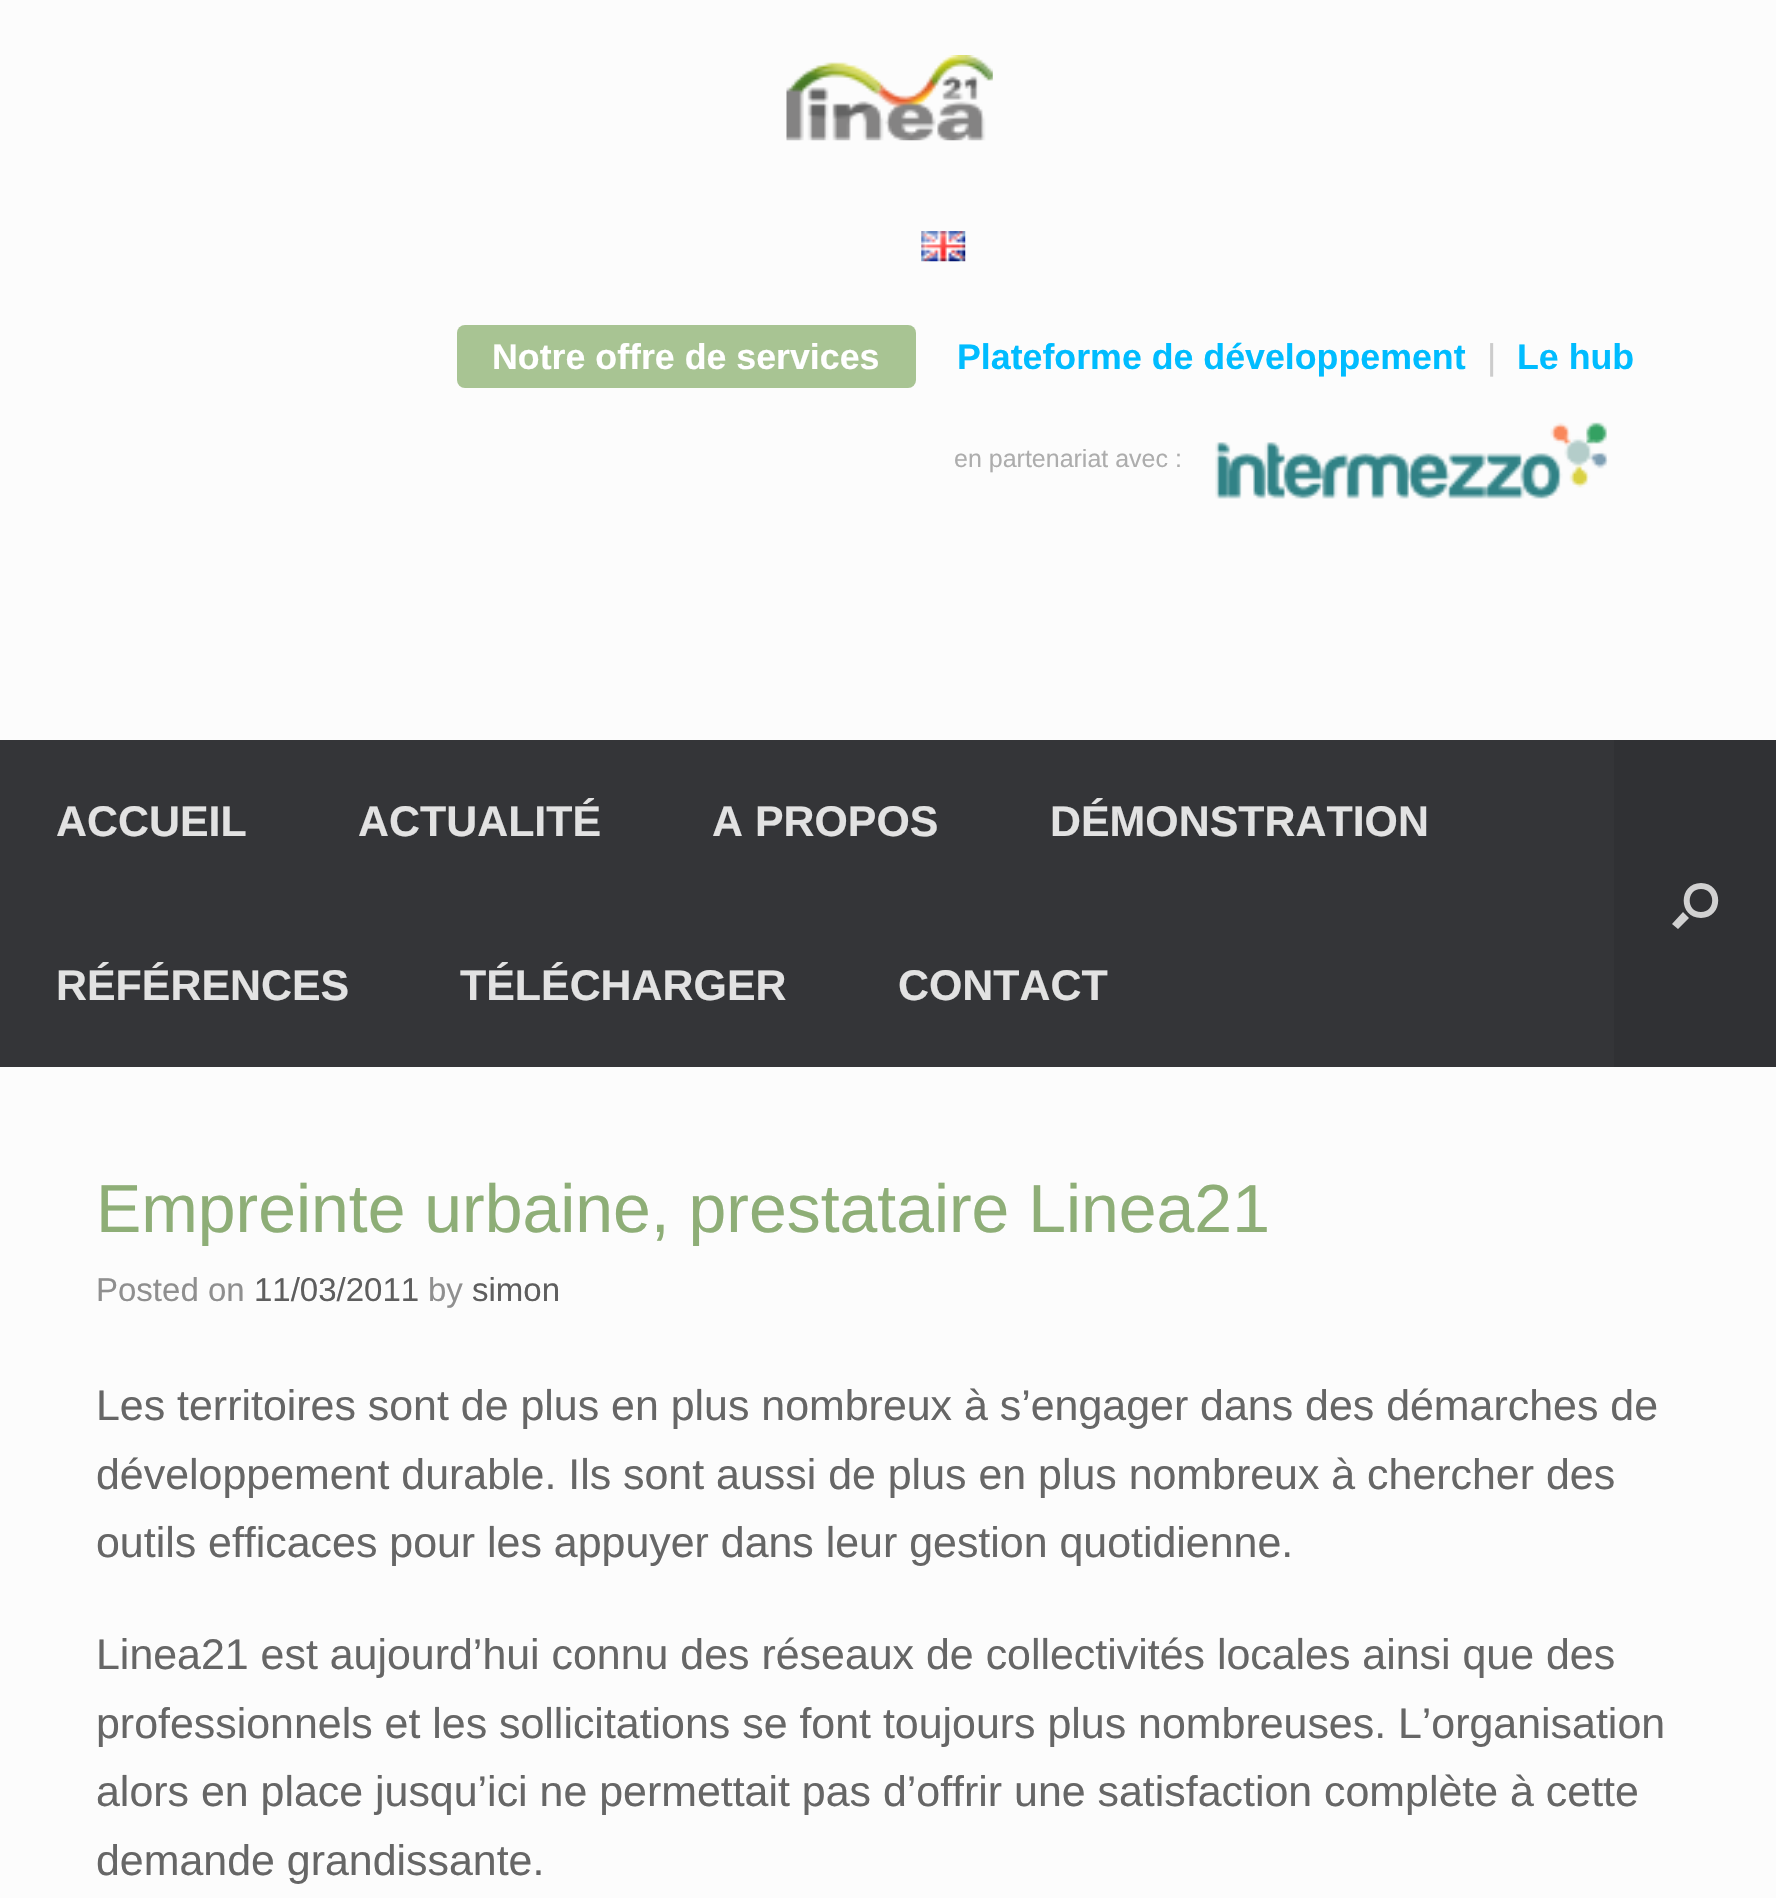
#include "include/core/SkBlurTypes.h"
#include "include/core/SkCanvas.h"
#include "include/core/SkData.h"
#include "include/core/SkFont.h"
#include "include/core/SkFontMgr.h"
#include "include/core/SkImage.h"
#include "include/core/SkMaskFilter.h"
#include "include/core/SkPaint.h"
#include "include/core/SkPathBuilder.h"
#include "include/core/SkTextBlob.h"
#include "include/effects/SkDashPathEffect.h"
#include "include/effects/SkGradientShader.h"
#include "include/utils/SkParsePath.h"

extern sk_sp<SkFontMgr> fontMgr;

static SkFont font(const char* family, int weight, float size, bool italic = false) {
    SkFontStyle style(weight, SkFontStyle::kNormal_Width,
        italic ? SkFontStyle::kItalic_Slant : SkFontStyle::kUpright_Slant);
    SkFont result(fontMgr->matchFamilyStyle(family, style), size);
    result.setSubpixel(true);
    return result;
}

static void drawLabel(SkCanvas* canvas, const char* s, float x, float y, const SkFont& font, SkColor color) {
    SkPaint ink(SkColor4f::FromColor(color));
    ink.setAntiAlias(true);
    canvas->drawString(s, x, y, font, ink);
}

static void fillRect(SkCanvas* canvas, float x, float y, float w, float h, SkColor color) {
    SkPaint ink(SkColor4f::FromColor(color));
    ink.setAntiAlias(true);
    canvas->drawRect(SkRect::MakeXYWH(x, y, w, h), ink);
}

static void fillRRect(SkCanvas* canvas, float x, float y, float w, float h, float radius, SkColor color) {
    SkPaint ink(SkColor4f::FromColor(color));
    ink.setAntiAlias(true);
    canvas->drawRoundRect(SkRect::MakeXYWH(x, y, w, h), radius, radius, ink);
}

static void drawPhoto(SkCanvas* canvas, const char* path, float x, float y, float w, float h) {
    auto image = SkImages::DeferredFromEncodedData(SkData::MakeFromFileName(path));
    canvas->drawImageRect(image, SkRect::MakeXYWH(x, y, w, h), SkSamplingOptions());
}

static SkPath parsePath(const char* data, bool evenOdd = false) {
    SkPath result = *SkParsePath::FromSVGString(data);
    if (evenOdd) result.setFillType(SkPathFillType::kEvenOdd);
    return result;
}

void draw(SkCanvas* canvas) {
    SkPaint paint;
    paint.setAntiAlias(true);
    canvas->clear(0xFFFCFCFC);
    drawPhoto(canvas, "assets/img1.png", 786, 55, 207, 86);
    drawPhoto(canvas, "assets/img2.png", 921, 231, 45, 31);
    fillRRect(canvas, 457, 325, 459, 63, 8, 0xFFA8C493);
    SkFont font1 = font("Liberation Sans", 700, 35.75f);
    drawLabel(canvas, "Notre offre de services", 492, 369, font1, 0xFFFFFFFF);
    drawLabel(canvas, "Plateforme de développement", 957, 369, font1, 0xFF00BCFF);
    SkFont font2 = font("Liberation Sans", 400, 35.75f);
    drawLabel(canvas, "|", 1487, 369, font2, 0xFFCCCCCC);
    drawLabel(canvas, "Le hub", 1517, 369, font1, 0xFF00BCFF);
    SkFont font3 = font("Liberation Sans", 400, 25);
    drawLabel(canvas, "en partenariat avec :", 954, 467, font3, 0xFFADADAD);
    drawPhoto(canvas, "assets/img3.png", 1215, 422, 394, 77);
    fillRect(canvas, 0, 740, 1614, 327, 0xFF343538);
    SkFont font4 = font("Liberation Sans", 700, 42.9f);
    drawLabel(canvas, "ACCUEIL", 56, 836, font4, 0xFFE2E2E2);
    drawLabel(canvas, "ACTUALITÉ", 358, 836, font4, 0xFFE2E2E2);
    drawLabel(canvas, "A PROPOS", 712, 836, font4, 0xFFE2E2E2);
    drawLabel(canvas, "DÉMONSTRATION", 1050, 836, font4, 0xFFE2E2E2);
    drawLabel(canvas, "RÉFÉRENCES", 56, 1000, font4, 0xFFE2E2E2);
    drawLabel(canvas, "TÉLÉCHARGER", 460, 1000, font4, 0xFFE2E2E2);
    drawLabel(canvas, "CONTACT", 898, 1000, font4, 0xFFE2E2E2);
    fillRect(canvas, 1614, 740, 162, 327, 0xFF303134);
    paint.setColor(0xFFD1D1D1);
    canvas->drawPath(parsePath("M1701 889C1716 889 1716 912 1701 912C1686 912 1686 889 1701 889ZM1701 883C1678 883 1678 918 1701 918C1724 918 1724 883 1701 883ZM1683 912L1689 918L1678 929L1672 924Z"), paint);
    SkFont font5 = font("Liberation Sans", 400, 67.9f);
    drawLabel(canvas, "Empreinte urbaine, prestataire Linea21", 96, 1232, font5, 0xFF8EAE77);
    SkFont font6 = font("Liberation Sans", 400, 33);
    drawLabel(canvas, "Posted on", 96, 1301, font6, 0xFF8F8F8F);
    drawLabel(canvas, "11/03/2011", 254, 1301, font6, 0xFF5E5E5E);
    drawLabel(canvas, "by", 428, 1301, font6, 0xFF8F8F8F);
    drawLabel(canvas, "simon", 472, 1301, font6, 0xFF5E5E5E);
    SkFont font7 = font("Liberation Sans", 400, 42.9f);
    drawLabel(canvas, "Les territoires sont de plus en plus nombreux à s’engager dans des démarches de", 96, 1420, font7, 0xFF666666);
    drawLabel(canvas, "développement durable. Ils sont aussi de plus en plus nombreux à chercher des", 96, 1489, font7, 0xFF666666);
    drawLabel(canvas, "outils efficaces pour les appuyer dans leur gestion quotidienne.", 96, 1557, font7, 0xFF666666);
    drawLabel(canvas, "Linea21 est aujourd’hui connu des réseaux de collectivités locales ainsi que des", 96, 1669, font7, 0xFF666666);
    drawLabel(canvas, "professionnels et les sollicitations se font toujours plus nombreuses. L’organisation", 96, 1738, font7, 0xFF666666);
    drawLabel(canvas, "alors en place jusqu’ici ne permettait pas d’offrir une satisfaction complète à cette", 96, 1806, font7, 0xFF666666);
    drawLabel(canvas, "demande grandissante.", 96, 1875, font7, 0xFF666666);
}
